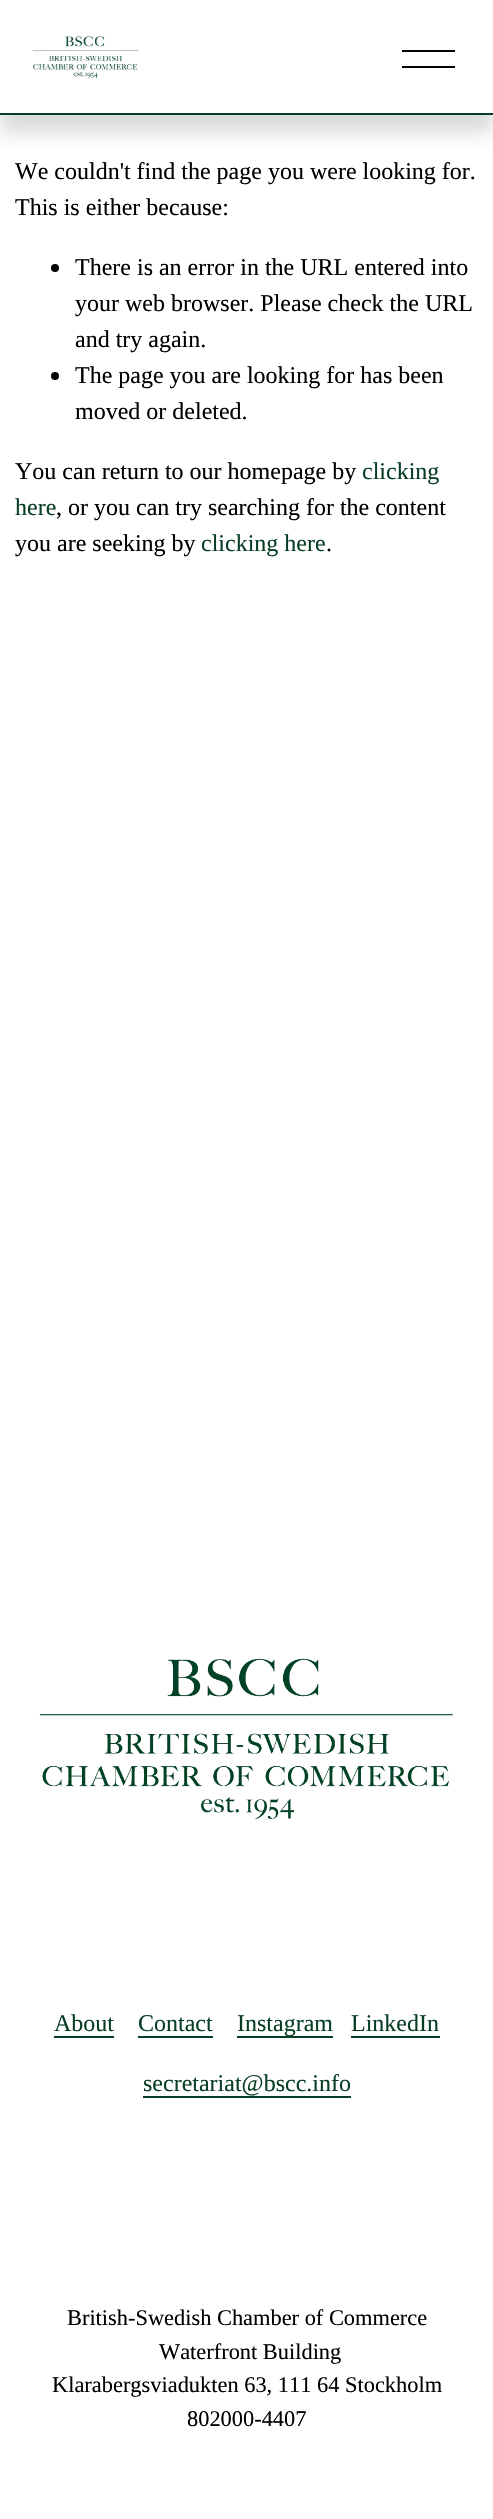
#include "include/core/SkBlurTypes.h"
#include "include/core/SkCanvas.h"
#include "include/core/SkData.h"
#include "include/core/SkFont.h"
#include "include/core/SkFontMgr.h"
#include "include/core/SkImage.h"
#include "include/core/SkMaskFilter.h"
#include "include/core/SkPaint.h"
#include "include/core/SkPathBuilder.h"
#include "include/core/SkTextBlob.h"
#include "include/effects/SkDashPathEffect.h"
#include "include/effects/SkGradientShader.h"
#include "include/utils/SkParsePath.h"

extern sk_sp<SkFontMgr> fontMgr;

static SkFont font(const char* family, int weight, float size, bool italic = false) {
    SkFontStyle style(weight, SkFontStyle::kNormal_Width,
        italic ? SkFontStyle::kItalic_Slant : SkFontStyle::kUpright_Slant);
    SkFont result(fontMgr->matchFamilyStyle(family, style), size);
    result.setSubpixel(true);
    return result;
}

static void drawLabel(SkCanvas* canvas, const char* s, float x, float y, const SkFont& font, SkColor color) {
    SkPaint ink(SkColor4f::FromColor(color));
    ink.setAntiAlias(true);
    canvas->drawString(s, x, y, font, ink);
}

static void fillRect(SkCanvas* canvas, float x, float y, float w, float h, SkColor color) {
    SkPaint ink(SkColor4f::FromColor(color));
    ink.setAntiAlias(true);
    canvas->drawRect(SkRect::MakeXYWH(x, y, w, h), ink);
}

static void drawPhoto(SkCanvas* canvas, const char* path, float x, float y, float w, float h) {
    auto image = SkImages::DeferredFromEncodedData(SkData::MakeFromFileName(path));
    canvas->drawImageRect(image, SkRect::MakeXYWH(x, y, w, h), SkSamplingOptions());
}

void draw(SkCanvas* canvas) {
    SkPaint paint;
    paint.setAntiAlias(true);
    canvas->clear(0xFFFFFFFF);
    canvas->save();
    canvas->clipRect(SkRect::MakeXYWH(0, 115, 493, 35));
    paint.setColor(0xFFD9D9D9);
    paint.setMaskFilter(SkMaskFilter::MakeBlur(kNormal_SkBlurStyle, 9));
    canvas->drawRect(SkRect::MakeXYWH(0, 18, 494, 114), paint);
    paint.setMaskFilter(nullptr);
    canvas->restore();
    drawPhoto(canvas, "assets/img1.png", 32, 36, 107, 43);
    fillRect(canvas, 402, 50, 53, 2, 0xFF000000);
    fillRect(canvas, 402, 66, 53, 2, 0xFF000000);
    fillRect(canvas, 0, 113, 493, 2, 0xFF063D23);
    SkFont font1 = font("Liberation Serif", 400, 24);
    drawLabel(canvas, "We couldn't find the page you were looking for.", 15, 179, font1, 0xFF000000);
    drawLabel(canvas, "This is either because:", 15, 215, font1, 0xFF000000);
    paint.setColor(0xFF000000);
    canvas->drawCircle(55, 268, 4, paint);
    drawLabel(canvas, "There is an error in the URL entered into", 75, 275, font1, 0xFF000000);
    drawLabel(canvas, "your web browser. Please check the URL", 75, 311, font1, 0xFF000000);
    drawLabel(canvas, "and try again.", 75, 347, font1, 0xFF000000);
    canvas->drawCircle(55, 376, 4, paint);
    drawLabel(canvas, "The page you are looking for has been", 75, 383, font1, 0xFF000000);
    drawLabel(canvas, "moved or deleted.", 75, 419, font1, 0xFF000000);
    drawLabel(canvas, "You can return to our homepage by", 15, 479, font1, 0xFF000000);
    drawLabel(canvas, "clicking", 362, 479, font1, 0xFF063D23);
    drawLabel(canvas, "here", 15, 515, font1, 0xFF063D23);
    drawLabel(canvas, ", or you can try searching for the content", 56, 515, font1, 0xFF000000);
    drawLabel(canvas, "you are seeking by", 15, 551, font1, 0xFF000000);
    drawLabel(canvas, "clicking here", 201, 551, font1, 0xFF063D23);
    drawLabel(canvas, ".", 326, 551, font1, 0xFF000000);
    drawPhoto(canvas, "assets/img2.png", 39, 1658, 414, 162);
    drawLabel(canvas, "About", 54, 2031, font1, 0xFF063D23);
    fillRect(canvas, 54, 2036, 60, 2, 0xFF063D23);
    drawLabel(canvas, "Contact", 138, 2031, font1, 0xFF063D23);
    fillRect(canvas, 138, 2036, 75, 2, 0xFF063D23);
    fillRect(canvas, 237, 2036, 96, 2, 0xFF063D23);
    drawLabel(canvas, "Instagram", 237, 2031, font1, 0xFF063D23);
    drawLabel(canvas, "LinkedIn", 351, 2031, font1, 0xFF063D23);
    fillRect(canvas, 351, 2036, 89, 2, 0xFF063D23);
    drawLabel(canvas, "secretariat@bscc.info", 143, 2091, font1, 0xFF063D23);
    fillRect(canvas, 143, 2096, 208, 2, 0xFF063D23);
    SkFont font2 = font("Liberation Serif", 400, 22.4f);
    drawLabel(canvas, "British-Swedish Chamber of Commerce", 67, 2325, font2, 0xFF000000);
    drawLabel(canvas, "Waterfront Building", 159, 2359, font2, 0xFF000000);
    drawLabel(canvas, "Klarabergsviadukten 63, 111 64 Stockholm", 52, 2392, font2, 0xFF000000);
    drawLabel(canvas, "802000-4407", 187, 2426, font2, 0xFF000000);
}
